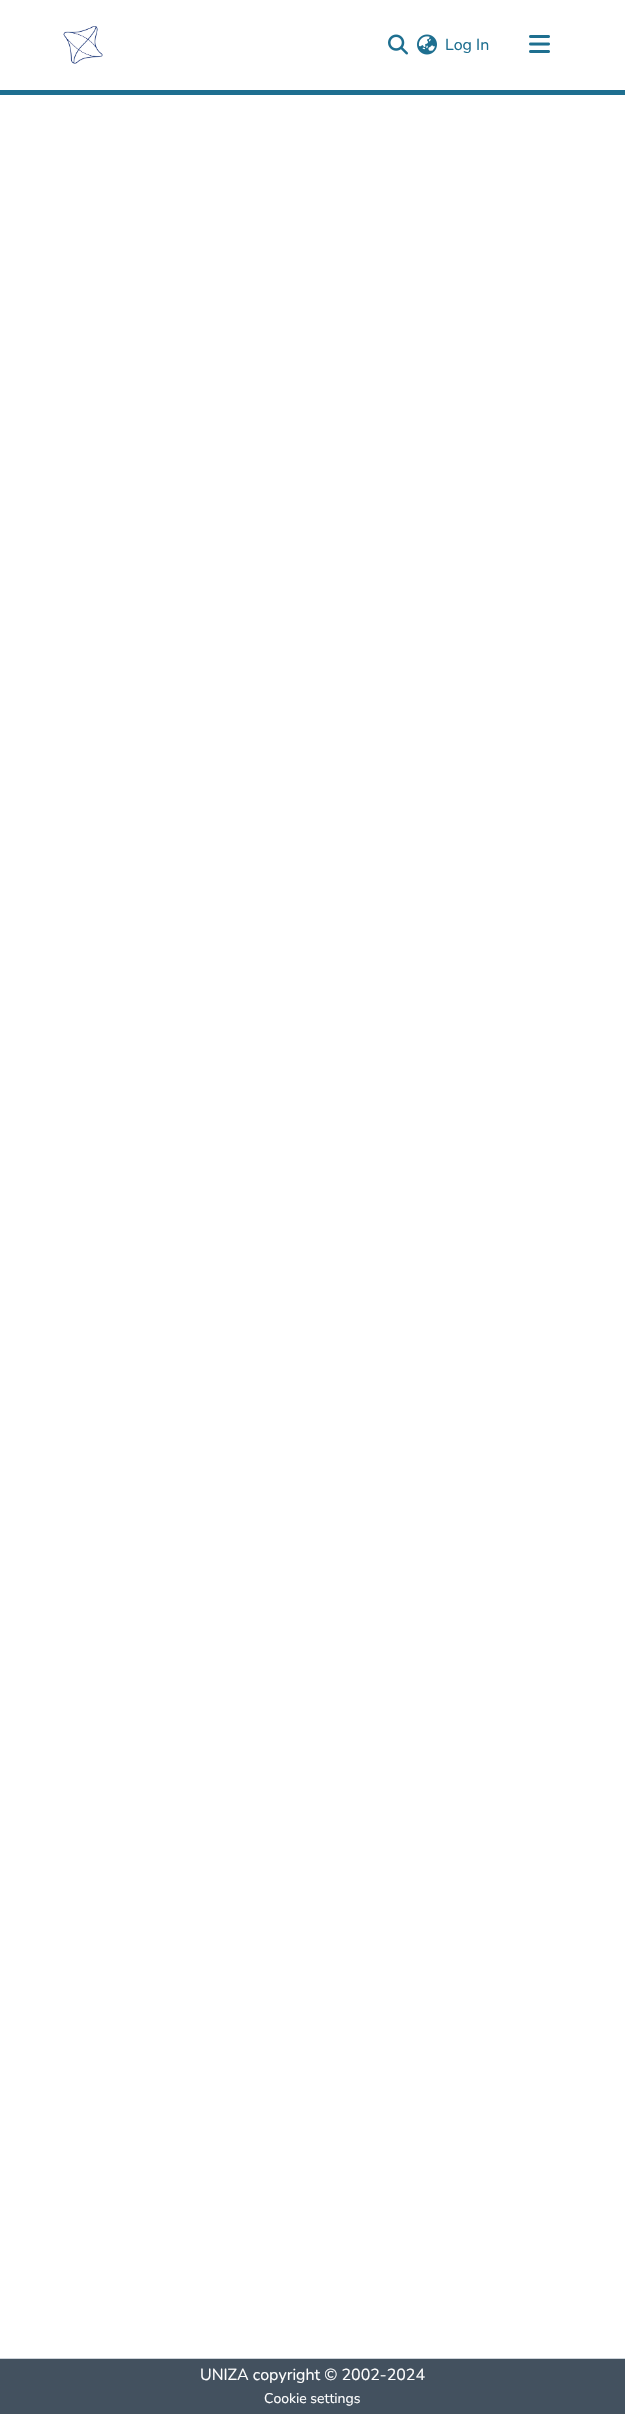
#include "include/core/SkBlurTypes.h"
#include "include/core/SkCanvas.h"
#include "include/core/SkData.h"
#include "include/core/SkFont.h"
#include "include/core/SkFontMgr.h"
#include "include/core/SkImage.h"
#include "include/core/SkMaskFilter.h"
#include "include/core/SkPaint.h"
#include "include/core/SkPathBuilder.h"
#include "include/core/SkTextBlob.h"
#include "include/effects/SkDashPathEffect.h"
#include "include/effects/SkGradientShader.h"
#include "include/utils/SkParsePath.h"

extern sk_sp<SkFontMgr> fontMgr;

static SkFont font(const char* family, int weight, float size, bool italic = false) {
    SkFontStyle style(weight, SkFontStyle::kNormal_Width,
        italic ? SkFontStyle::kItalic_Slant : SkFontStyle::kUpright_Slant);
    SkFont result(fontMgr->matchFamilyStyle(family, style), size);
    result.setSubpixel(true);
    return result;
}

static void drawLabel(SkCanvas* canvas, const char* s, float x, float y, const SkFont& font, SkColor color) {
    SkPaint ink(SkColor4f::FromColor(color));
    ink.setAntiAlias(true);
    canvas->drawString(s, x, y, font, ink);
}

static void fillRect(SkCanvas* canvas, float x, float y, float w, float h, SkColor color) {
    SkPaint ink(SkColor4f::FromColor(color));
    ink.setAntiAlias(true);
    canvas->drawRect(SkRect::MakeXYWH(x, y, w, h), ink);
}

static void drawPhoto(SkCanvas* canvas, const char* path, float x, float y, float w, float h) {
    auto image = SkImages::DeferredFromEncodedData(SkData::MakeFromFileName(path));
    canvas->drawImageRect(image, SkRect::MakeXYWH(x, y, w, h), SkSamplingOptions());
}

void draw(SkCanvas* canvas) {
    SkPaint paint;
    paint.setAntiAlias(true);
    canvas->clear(0xFFFFFFFF);
    fillRect(canvas, 0, 90, 625, 5, 0xFF1E6F90);
    drawPhoto(canvas, "assets/img1.png", 63, 26, 40, 38);
    drawPhoto(canvas, "assets/img2.png", 388, 34, 20, 21);
    drawPhoto(canvas, "assets/img3.png", 417, 34, 20, 21);
    SkFont font1 = font("Nunito", 400, 16);
    drawLabel(canvas, "Log In", 445, 50, font1, 0xFF1E6F90);
    drawPhoto(canvas, "assets/img4.png", 529, 35, 21, 18);
    fillRect(canvas, 0, 2359, 625, 55, 0xFF43515F);
    fillRect(canvas, 0, 2358, 625, 1, 0xFFCED4DA);
    drawLabel(canvas, "UNIZA copyright © 2002-2024", 200, 2380, font1, 0xFFFFFFFF);
    SkFont font2 = font("Nunito", 400, 14);
    drawLabel(canvas, "Cookie settings", 264, 2403, font2, 0xFFFFFFFF);
}
